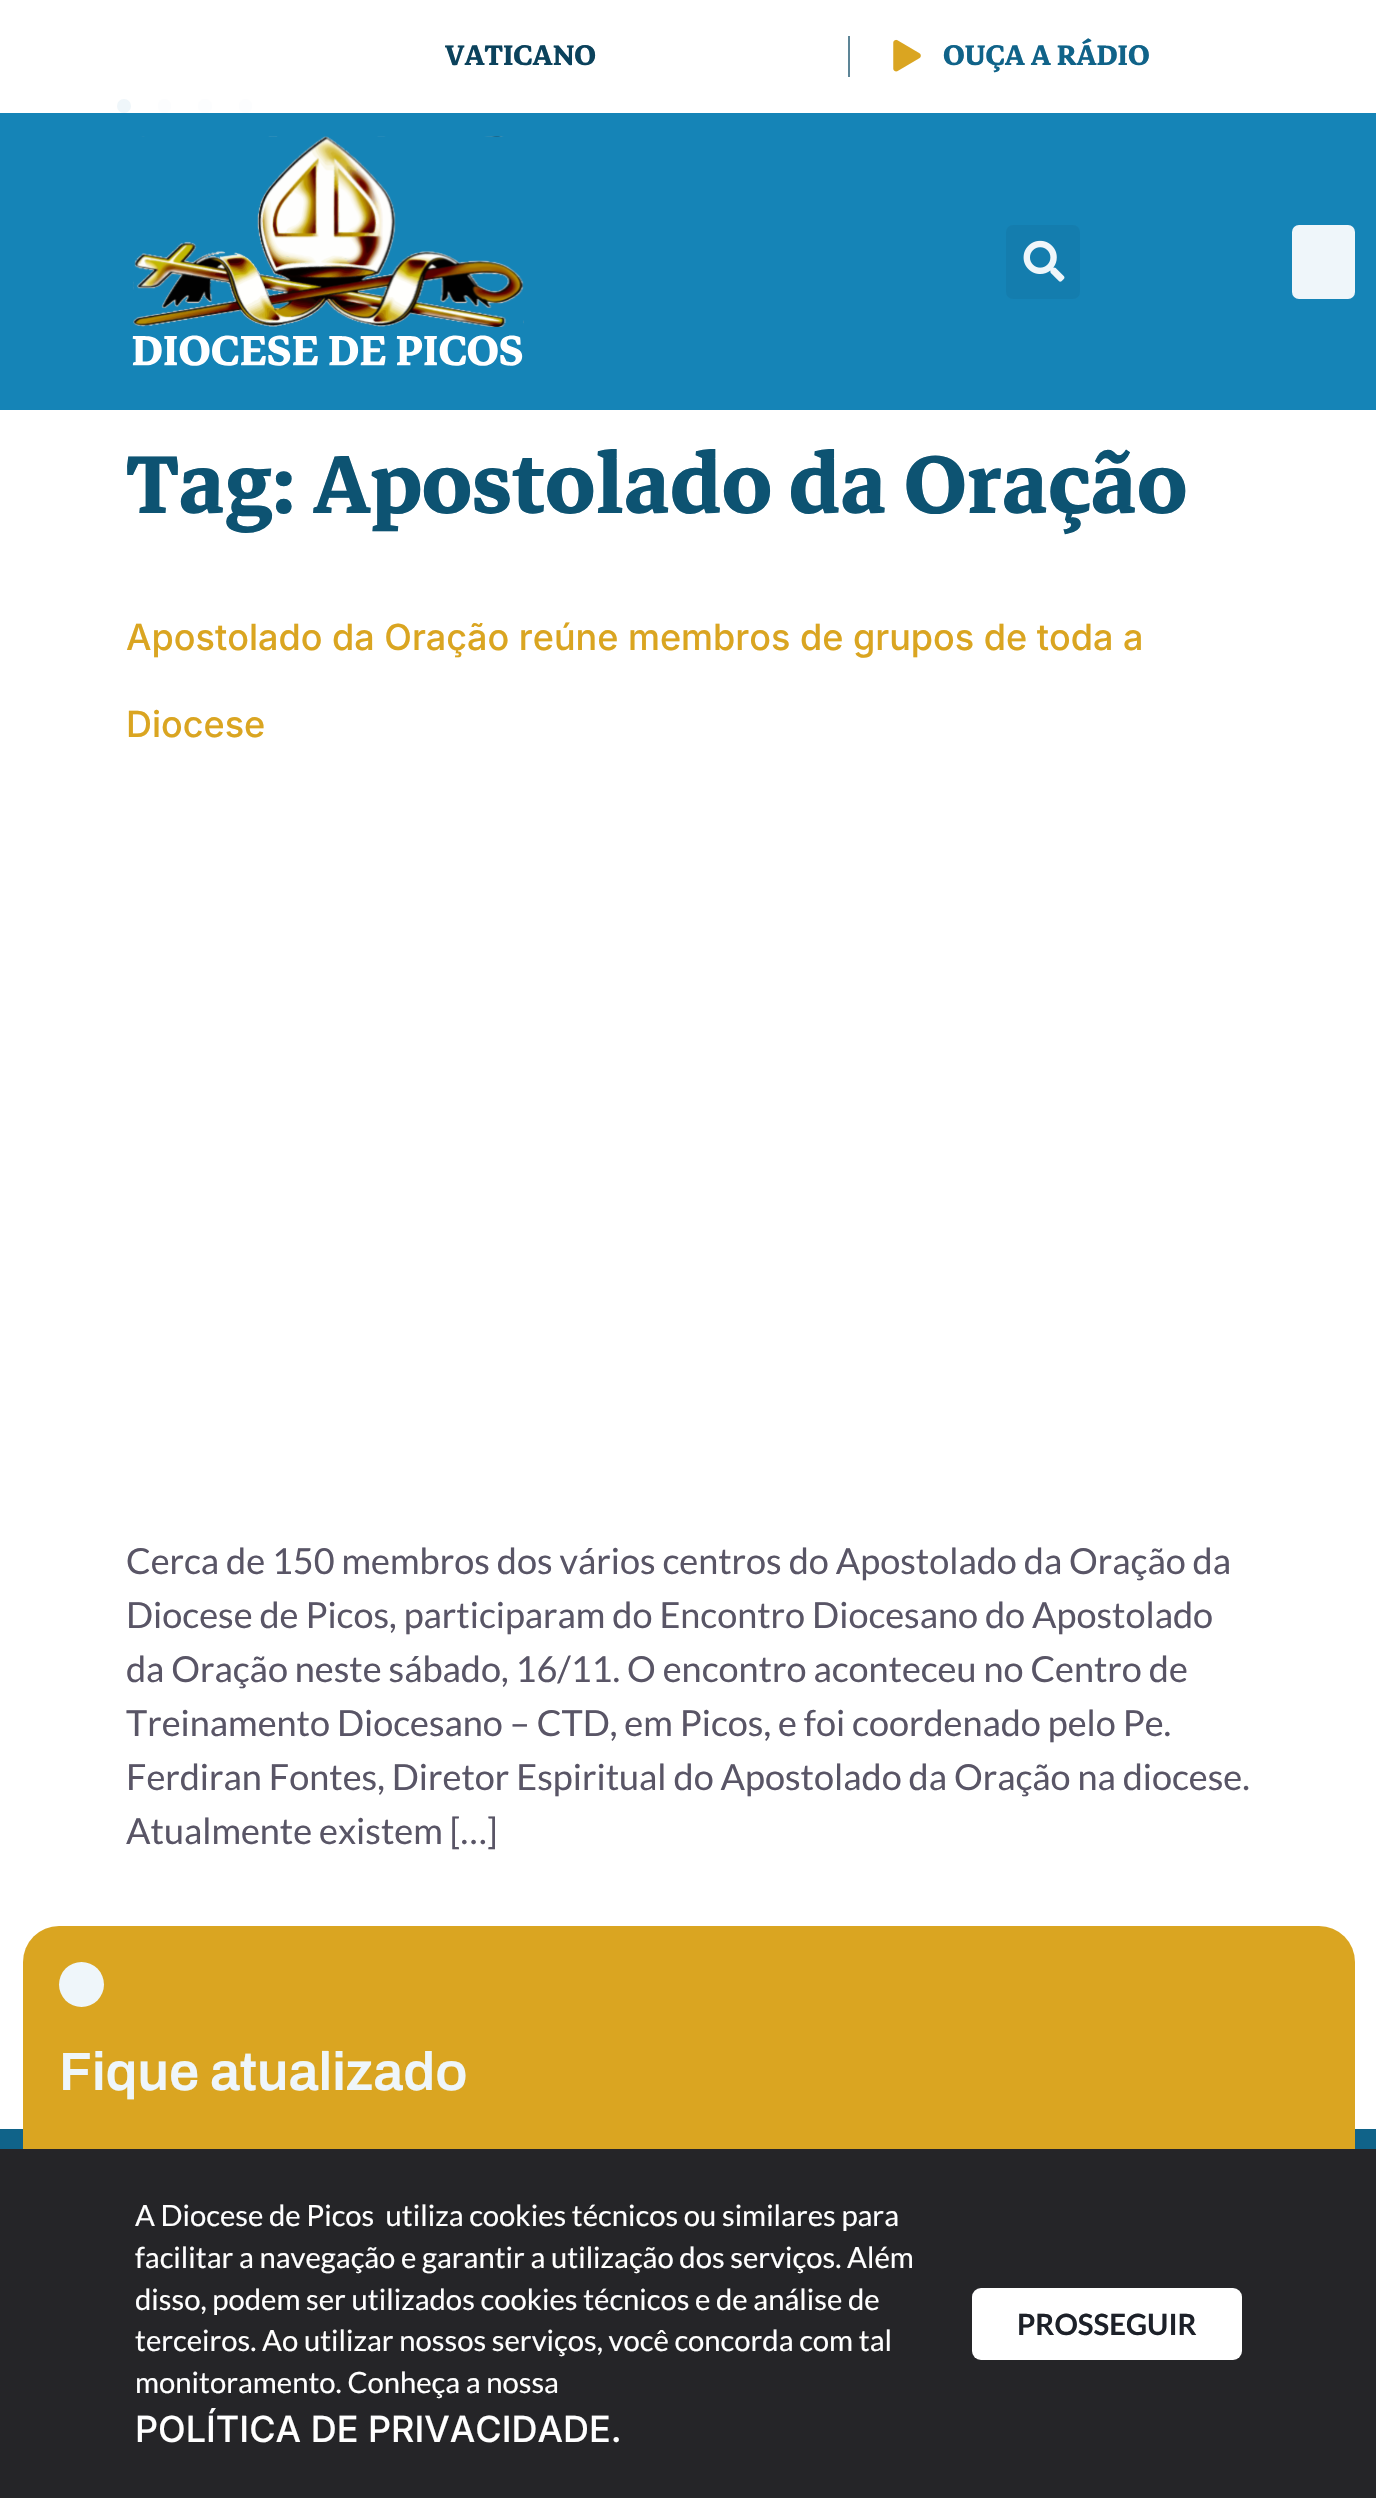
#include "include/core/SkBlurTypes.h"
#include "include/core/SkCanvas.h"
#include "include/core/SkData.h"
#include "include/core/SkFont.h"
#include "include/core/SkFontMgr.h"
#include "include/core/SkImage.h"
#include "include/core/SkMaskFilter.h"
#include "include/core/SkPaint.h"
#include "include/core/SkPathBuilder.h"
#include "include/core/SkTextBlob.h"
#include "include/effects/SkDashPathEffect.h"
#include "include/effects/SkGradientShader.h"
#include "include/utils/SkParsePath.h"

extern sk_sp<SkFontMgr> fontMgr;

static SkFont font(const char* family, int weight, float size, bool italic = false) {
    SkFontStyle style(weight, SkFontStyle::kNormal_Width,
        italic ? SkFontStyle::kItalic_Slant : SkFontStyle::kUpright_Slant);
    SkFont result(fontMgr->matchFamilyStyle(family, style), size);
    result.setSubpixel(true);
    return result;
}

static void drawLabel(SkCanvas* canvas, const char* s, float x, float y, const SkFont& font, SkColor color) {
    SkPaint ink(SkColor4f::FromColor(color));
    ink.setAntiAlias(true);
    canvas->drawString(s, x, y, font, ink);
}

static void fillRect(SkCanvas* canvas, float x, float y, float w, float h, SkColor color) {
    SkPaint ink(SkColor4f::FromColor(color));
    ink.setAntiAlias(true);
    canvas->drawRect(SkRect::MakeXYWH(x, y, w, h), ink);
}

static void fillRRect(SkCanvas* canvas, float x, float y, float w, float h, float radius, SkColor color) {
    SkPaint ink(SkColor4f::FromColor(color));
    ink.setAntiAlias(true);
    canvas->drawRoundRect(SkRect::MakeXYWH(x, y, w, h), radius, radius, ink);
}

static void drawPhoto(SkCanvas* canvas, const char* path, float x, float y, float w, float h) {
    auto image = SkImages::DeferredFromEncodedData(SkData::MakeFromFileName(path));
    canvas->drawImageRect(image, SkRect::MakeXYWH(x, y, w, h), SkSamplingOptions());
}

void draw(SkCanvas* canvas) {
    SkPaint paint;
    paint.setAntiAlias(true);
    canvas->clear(0xFFFFFFFF);
    fillRect(canvas, 848, 36, 2, 41, 0xFF5D8597);
    SkFont font1 = font("Markazi Text", 700, 40.5f);
    drawLabel(canvas, "VATICANO", 445, 65, font1, 0xFF0B425C);
    paint.setColor(0xFFEFF6FA);
    canvas->drawCircle(124, 106, 7, paint);
    fillRRect(canvas, 158, 99, 13, 14, 6.5f, 0xFFFCFDFE);
    paint.setColor(0xFFFCFDFE);
    canvas->drawCircle(205, 106, 7, paint);
    fillRRect(canvas, 239, 99, 13, 14, 6.5f, 0xFFFCFDFE);
    drawPhoto(canvas, "assets/img1.png", 893, 39, 28, 33);
    drawLabel(canvas, "OUÇA A RÁDIO", 943, 65, font1, 0xFF106389);
    fillRect(canvas, 0, 113, 1376, 297, 0xFF1584B7);
    drawPhoto(canvas, "assets/img2.png", 132, 136, 392, 230);
    fillRRect(canvas, 1006, 225, 74, 74, 7, 0xFF147DAE);
    drawPhoto(canvas, "assets/img3.png", 1023, 240, 42, 42);
    fillRRect(canvas, 1292, 225, 63, 74, 7, 0xFFEFF6FA);
    SkFont font2 = font("Markazi Text", 700, 117);
    drawLabel(canvas, "Tag: Apostolado da Oração", 126, 513, font2, 0xFF0D5372);
    SkFont font3 = font("Inter", 500, 36);
    drawLabel(canvas, "Apostolado da Oração reúne membros de grupos de toda a", 126, 650, font3, 0xFFDAA521);
    drawLabel(canvas, "Diocese", 126, 737, font3, 0xFFDAA521);
    SkFont font4 = font("Lato", 400, 36);
    drawLabel(canvas, "Cerca de 150 membros dos vários centros do Apostolado da Oração da", 126, 1574, font4, 0xFF595566);
    drawLabel(canvas, "Diocese de Picos, participaram do Encontro Diocesano do Apostolado", 126, 1628, font4, 0xFF595566);
    drawLabel(canvas, "da Oração neste sábado, 16/11. O encontro aconteceu no Centro de", 126, 1682, font4, 0xFF595566);
    drawLabel(canvas, "Treinamento Diocesano – CTD, em Picos, e foi coordenado pelo Pe.", 126, 1736, font4, 0xFF595566);
    drawLabel(canvas, "Ferdiran Fontes, Diretor Espiritual do Apostolado da Oração na diocese.", 126, 1790, font4, 0xFF595566);
    drawLabel(canvas, "Atualmente existem […]", 126, 1844, font4, 0xFF595566);
    fillRect(canvas, 0, 2129, 1376, 20, 0xFF106389);
    fillRRect(canvas, 23, 1926, 1332, 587, 36, 0xFFDAA521);
    paint.setColor(0xFFEFF6FA);
    canvas->drawCircle(81.5f, 1984.5f, 22.5f, paint);
    SkFont font5 = font("Archivo", 600, 54);
    drawLabel(canvas, "Fique atualizado", 59, 2090, font5, 0xFFEFF6FA);
    fillRect(canvas, 0, 2149, 1376, 349, 0xFF252528);
    SkFont font6 = font("Lato", 400, 29.25f);
    drawLabel(canvas, "A Diocese de Picos  utiliza cookies técnicos ou similares para", 135, 2226, font6, 0xFFFFFFFF);
    drawLabel(canvas, "facilitar a navegação e garantir a utilização dos serviços. Além", 135, 2268, font6, 0xFFFFFFFF);
    drawLabel(canvas, "disso, podem ser utilizados cookies técnicos e de análise de", 135, 2310, font6, 0xFFFFFFFF);
    drawLabel(canvas, "terceiros. Ao utilizar nossos serviços, você concorda com tal", 135, 2351, font6, 0xFFFFFFFF);
    drawLabel(canvas, "monitoramento. Conheça a nossa", 135, 2393, font6, 0xFFFFFFFF);
    drawLabel(canvas, "POLÍTICA DE PRIVACIDADE.", 135, 2442, font3, 0xFFFFFFFF);
    fillRRect(canvas, 972, 2288, 270, 72, 9, 0xFFFFFFFF);
    SkFont font7 = font("Lato", 700, 29.25f);
    drawLabel(canvas, "PROSSEGUIR", 1017, 2335, font7, 0xFF1D2129);
}
